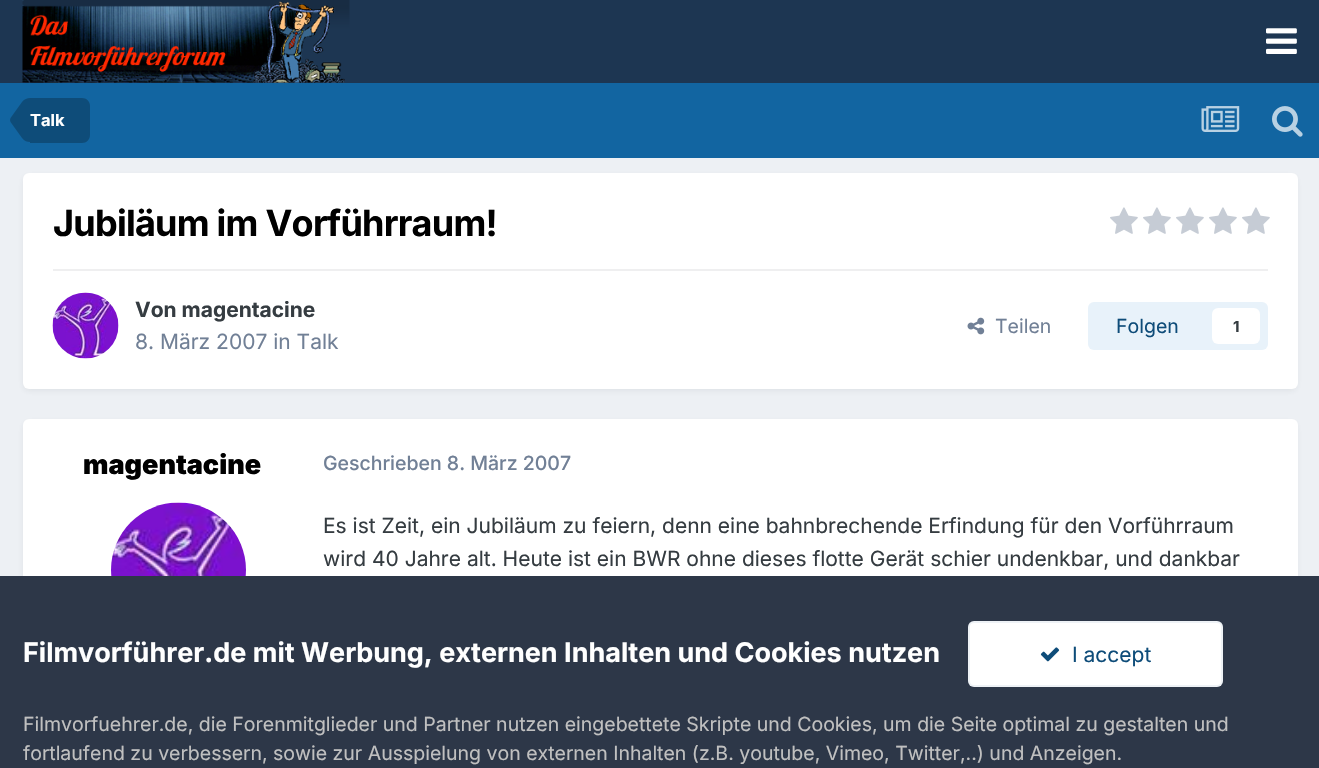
#include "include/core/SkBlurTypes.h"
#include "include/core/SkCanvas.h"
#include "include/core/SkData.h"
#include "include/core/SkFont.h"
#include "include/core/SkFontMgr.h"
#include "include/core/SkImage.h"
#include "include/core/SkMaskFilter.h"
#include "include/core/SkPaint.h"
#include "include/core/SkPathBuilder.h"
#include "include/core/SkTextBlob.h"
#include "include/effects/SkDashPathEffect.h"
#include "include/effects/SkGradientShader.h"
#include "include/utils/SkParsePath.h"

extern sk_sp<SkFontMgr> fontMgr;

static SkFont font(const char* family, int weight, float size, bool italic = false) {
    SkFontStyle style(weight, SkFontStyle::kNormal_Width,
        italic ? SkFontStyle::kItalic_Slant : SkFontStyle::kUpright_Slant);
    SkFont result(fontMgr->matchFamilyStyle(family, style), size);
    result.setSubpixel(true);
    return result;
}

static void drawLabel(SkCanvas* canvas, const char* s, float x, float y, const SkFont& font, SkColor color) {
    SkPaint ink(SkColor4f::FromColor(color));
    ink.setAntiAlias(true);
    canvas->drawString(s, x, y, font, ink);
}

static void drawTracked(SkCanvas* canvas, const char* s, float x, float y, const SkFont& font, const SkPaint& ink, float letter, float word) {
    std::vector<SkGlyphID> glyphs(font.countText(s, strlen(s), SkTextEncoding::kUTF8));
    std::vector<float> xs(glyphs.size());
    font.textToGlyphs(s, strlen(s), SkTextEncoding::kUTF8, glyphs);
    font.getXPos(glyphs, xs, x);
    float extra = 0;
    for (size_t i = 0; i < glyphs.size(); i++) {
        xs[i] += extra;
        extra += letter + word * (glyphs[i] == font.unicharToGlyph(' '));
    }
    canvas->drawTextBlob(SkTextBlob::MakeFromPosHGlyphs(glyphs, xs, y, font), 0, 0, ink);
}

static void fillRect(SkCanvas* canvas, float x, float y, float w, float h, SkColor color) {
    SkPaint ink(SkColor4f::FromColor(color));
    ink.setAntiAlias(true);
    canvas->drawRect(SkRect::MakeXYWH(x, y, w, h), ink);
}

static void fillRRect(SkCanvas* canvas, float x, float y, float w, float h, float radius, SkColor color) {
    SkPaint ink(SkColor4f::FromColor(color));
    ink.setAntiAlias(true);
    canvas->drawRoundRect(SkRect::MakeXYWH(x, y, w, h), radius, radius, ink);
}

static void drawPhoto(SkCanvas* canvas, const char* path, float x, float y, float w, float h) {
    auto image = SkImages::DeferredFromEncodedData(SkData::MakeFromFileName(path));
    canvas->drawImageRect(image, SkRect::MakeXYWH(x, y, w, h), SkSamplingOptions());
}

static SkPath parsePath(const char* data, bool evenOdd = false) {
    SkPath result = *SkParsePath::FromSVGString(data);
    if (evenOdd) result.setFillType(SkPathFillType::kEvenOdd);
    return result;
}

void draw(SkCanvas* canvas) {
    SkPaint paint;
    paint.setAntiAlias(true);
    canvas->clear(0xFFEDF0F4);
    fillRect(canvas, 0, 0, 1319, 83, 0xFF1D3652);
    drawPhoto(canvas, "assets/img1.png", 22, 0, 328, 83);
    drawPhoto(canvas, "assets/img2.png", 1266, 28, 31, 26);
    fillRect(canvas, 0, 83, 1319, 75, 0xFF1265A1);
    paint.setColor(0xFF0E4C79);
    canvas->drawPath(parsePath("M30 98H82C86.5 98 90 101.5 90 106V135C90 139.5 86.5 143 82 143H30Z"), paint);
    canvas->drawPath(parsePath("M30 120V142C27 142 24.5 141 22 138L10.5 122L10 120ZM30 120H10L10.5 118L22 102C24.5 99 27 98 30 98Z"), paint);
    SkFont font1 = font("Inter", 700, 16.5f);
    drawLabel(canvas, "Talk", 30, 126, font1, 0xFFFFFFFF);
    drawPhoto(canvas, "assets/img3.png", 1201, 106, 39, 26);
    drawPhoto(canvas, "assets/img4.png", 1272, 106, 31, 31);
    paint.setColor(0x1A2D3748);
    paint.setMaskFilter(SkMaskFilter::MakeBlur(kNormal_SkBlurStyle, 3));
    canvas->drawRoundRect(SkRect::MakeXYWH(24, 177, 1272, 213), 5, 5, paint);
    paint.setMaskFilter(nullptr);
    fillRRect(canvas, 23, 173, 1275, 216, 6, 0xFFFFFFFF);
    SkFont font2 = font("Inter", 700, 36);
    paint.setColor(0xFF000000);
    drawTracked(canvas, "Jubiläum im Vorführraum!", 53, 236, font2, paint, -0.75f, 0);
    drawPhoto(canvas, "assets/img5.png", 1110, 207, 28, 27);
    drawPhoto(canvas, "assets/img5.png", 1143, 207, 28, 27);
    drawPhoto(canvas, "assets/img5.png", 1176, 207, 28, 27);
    drawPhoto(canvas, "assets/img5.png", 1209, 207, 28, 27);
    drawPhoto(canvas, "assets/img5.png", 1242, 207, 28, 27);
    fillRect(canvas, 53, 269, 1215, 2, 0xFFEFEFF0);
    drawPhoto(canvas, "assets/img6.png", 52, 292, 67, 67);
    SkFont font3 = font("Inter", 700, 21);
    drawLabel(canvas, "Von magentacine", 135, 317, font3, 0xFF353C41);
    SkFont font4 = font("Inter", 400, 21);
    drawLabel(canvas, "8. März 2007 in Talk", 135, 349, font4, 0xFF718096);
    drawPhoto(canvas, "assets/img7.png", 967, 317, 18, 18);
    SkFont font5 = font("Inter", 400, 19.5f);
    drawLabel(canvas, "Teilen", 995, 333, font5, 0xFF718096);
    fillRRect(canvas, 1088, 302, 180, 48, 6, 0xFFE8F2FA);
    drawLabel(canvas, "Folgen", 1116, 333, font5, 0xFF0E4C79);
    fillRRect(canvas, 1212, 308, 48, 36, 6, 0xFFFFFFFF);
    SkFont font6 = font("Inter", 700, 15);
    drawLabel(canvas, "1", 1233, 332, font6, 0xFF353C41);
    paint.setColor(0x1A2D3748);
    paint.setMaskFilter(SkMaskFilter::MakeBlur(kNormal_SkBlurStyle, 3));
    canvas->drawRoundRect(SkRect::MakeXYWH(24, 423, 1272, 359), 5, 5, paint);
    paint.setMaskFilter(nullptr);
    fillRRect(canvas, 23, 419, 1275, 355, 6, 0xFFFFFFFF);
    SkFont font7 = font("Inter", 900, 27);
    drawLabel(canvas, "magentacine", 83, 474, font7, 0xFF000000);
    drawPhoto(canvas, "assets/img8.png", 111, 502, 135, 74);
    SkFont font8 = font("Inter", 500, 19.5f);
    drawLabel(canvas, "Geschrieben 8. März 2007", 323, 470, font8, 0xFF718096);
    drawLabel(canvas, "Es ist Zeit, ein Jubiläum zu feiern, denn eine bahnbrechende Erfindung für den Vorführraum", 323, 533, font4, 0xFF353C41);
    drawLabel(canvas, "wird 40 Jahre alt. Heute ist ein BWR ohne dieses flotte Gerät schier undenkbar, und dankbar", 323, 566, font4, 0xFF353C41);
    fillRect(canvas, 0, 576, 1319, 192, 0xFF2D3748);
    SkFont font9 = font("Inter", 700, 27);
    drawLabel(canvas, "Filmvorführer.de mit Werbung, externen Inhalten und Cookies nutzen", 23, 662, font9, 0xFFFFFFFF);
    fillRRect(canvas, 968, 621, 255, 66, 6, 0xFFFFFFFF);
    paint.setStroke(true);
    paint.setStrokeWidth(2);
    paint.setColor(0x120E4C79);
    canvas->drawRoundRect(SkRect::MakeXYWH(969, 622, 253, 64), 5, 5, paint);
    drawPhoto(canvas, "assets/img9.png", 1040, 647, 20, 15);
    drawLabel(canvas, "I accept", 1072, 662, font4, 0xFF0E4C79);
    drawLabel(canvas, "Filmvorfuehrer.de, die Forenmitglieder und Partner nutzen eingebettete Skripte und Cookies, um die Seite optimal zu gestalten und", 23, 731, font5, 0xFFC0C0C0);
    drawLabel(canvas, "fortlaufend zu verbessern, sowie zur Ausspielung von externen Inhalten (z.B. youtube, Vimeo, Twitter,..) und Anzeigen.", 23, 760, font5, 0xFFC0C0C0);
}
